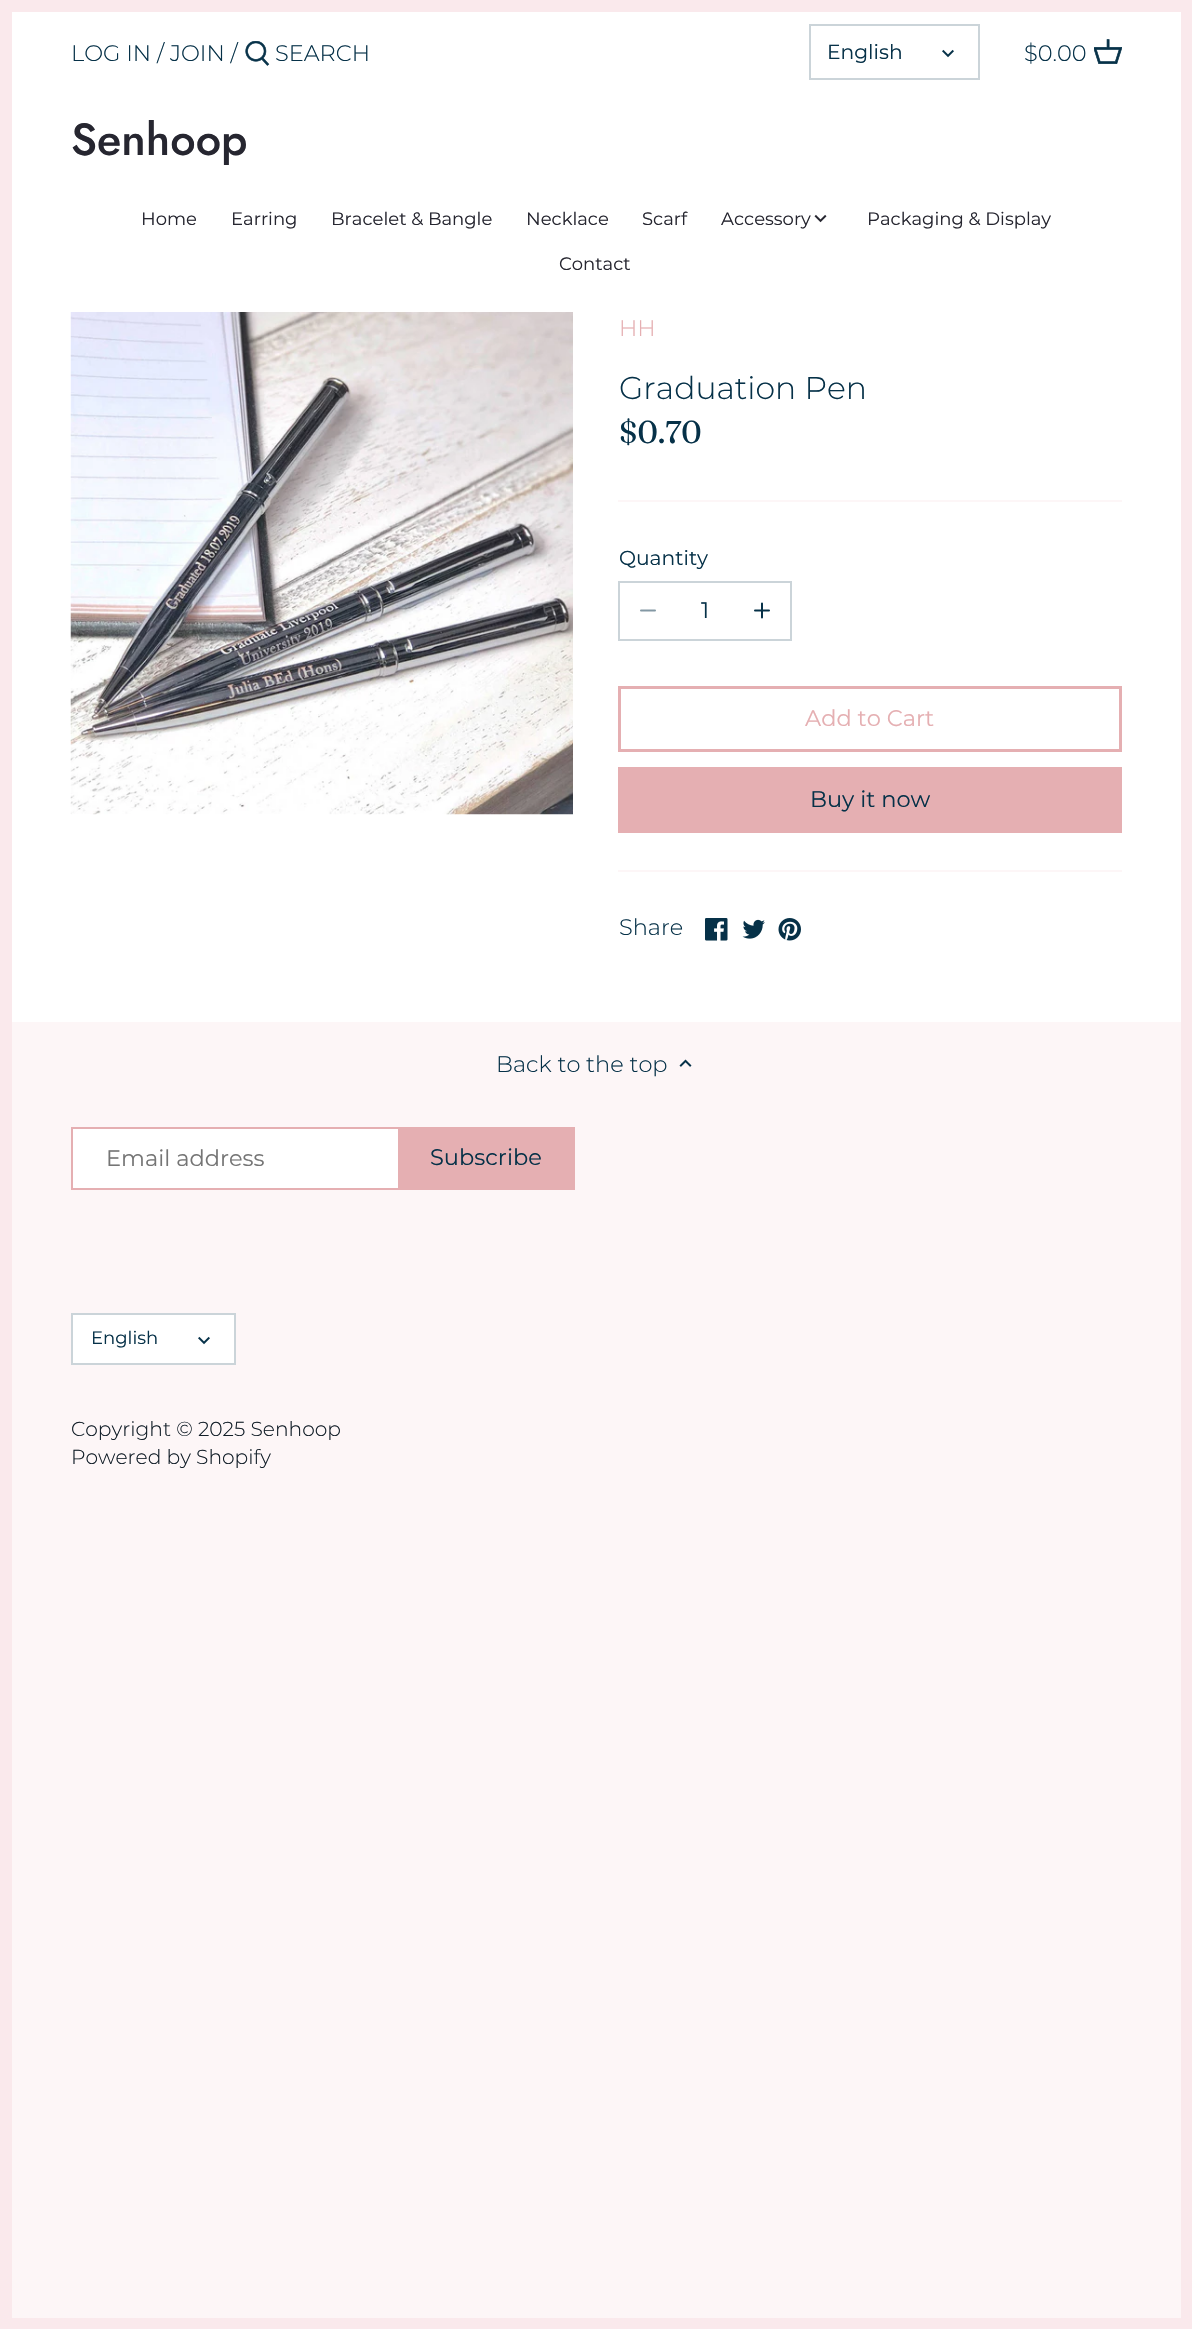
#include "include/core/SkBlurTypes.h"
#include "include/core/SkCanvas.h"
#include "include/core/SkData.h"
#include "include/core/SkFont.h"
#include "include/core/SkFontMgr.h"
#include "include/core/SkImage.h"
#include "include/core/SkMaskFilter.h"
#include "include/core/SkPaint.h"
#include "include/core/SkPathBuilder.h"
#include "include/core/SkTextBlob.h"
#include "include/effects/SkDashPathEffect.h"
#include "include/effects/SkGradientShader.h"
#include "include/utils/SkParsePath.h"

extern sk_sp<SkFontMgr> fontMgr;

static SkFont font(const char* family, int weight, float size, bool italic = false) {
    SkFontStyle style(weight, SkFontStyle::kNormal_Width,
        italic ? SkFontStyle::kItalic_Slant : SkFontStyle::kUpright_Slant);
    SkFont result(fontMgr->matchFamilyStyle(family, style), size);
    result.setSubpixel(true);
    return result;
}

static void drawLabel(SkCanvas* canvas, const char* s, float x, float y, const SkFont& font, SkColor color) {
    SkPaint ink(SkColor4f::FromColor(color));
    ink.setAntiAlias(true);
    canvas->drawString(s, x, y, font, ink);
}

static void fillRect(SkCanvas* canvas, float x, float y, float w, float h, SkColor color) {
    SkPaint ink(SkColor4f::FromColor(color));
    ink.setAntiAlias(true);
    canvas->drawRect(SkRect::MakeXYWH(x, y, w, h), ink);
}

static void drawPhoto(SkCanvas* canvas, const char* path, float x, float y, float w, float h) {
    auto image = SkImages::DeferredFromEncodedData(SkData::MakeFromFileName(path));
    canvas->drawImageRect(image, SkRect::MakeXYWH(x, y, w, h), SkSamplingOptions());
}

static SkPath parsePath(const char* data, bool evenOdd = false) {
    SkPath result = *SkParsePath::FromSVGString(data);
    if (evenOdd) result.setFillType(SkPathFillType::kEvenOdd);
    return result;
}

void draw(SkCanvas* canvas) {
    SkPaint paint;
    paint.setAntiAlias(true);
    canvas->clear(0xFFFDF6F7);
    paint.setStroke(true);
    paint.setStrokeWidth(12);
    paint.setColor(0xFFFAE9EC);
    canvas->drawRect(SkRect::MakeXYWH(6, 6, 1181, 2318), paint);
    fillRect(canvas, 12, 12, 1169, 1010, 0xFFFFFFFF);
    SkFont font1 = font("Montserrat", 300, 22.5f);
    drawLabel(canvas, "LOG IN / JOIN /", 71, 61, font1, 0xFF063148);
    drawPhoto(canvas, "assets/img1.png", 245, 41, 25, 25);
    drawLabel(canvas, "SEARCH", 275, 61, font1, 0xFF063148);
    paint.setStrokeWidth(2);
    paint.setColor(0xFFCBD4D9);
    canvas->drawRect(SkRect::MakeXYWH(810, 25, 169, 54), paint);
    SkFont font2 = font("Montserrat", 400, 20.25f);
    drawLabel(canvas, "English", 827, 59, font2, 0xFF063148);
    drawPhoto(canvas, "assets/img2.png", 942, 49, 12, 9);
    drawLabel(canvas, "$0.00", 1024, 61, font1, 0xFF063148);
    drawPhoto(canvas, "assets/img3.png", 1094, 39, 28, 25);
    SkFont font3 = font("Jost", 500, 45);
    drawLabel(canvas, "Senhoop", 71, 155, font3, 0xFF262630);
    SkFont font4 = font("Montserrat", 400, 18);
    drawLabel(canvas, "Home", 141, 225, font4, 0xFF262630);
    drawLabel(canvas, "Earring", 231, 225, font4, 0xFF262630);
    drawLabel(canvas, "Bracelet & Bangle", 331, 225, font4, 0xFF262630);
    drawLabel(canvas, "Necklace", 526, 225, font4, 0xFF262630);
    drawLabel(canvas, "Scarf", 642, 225, font4, 0xFF262630);
    drawLabel(canvas, "Accessory", 721, 225, font4, 0xFF262630);
    drawPhoto(canvas, "assets/img4.png", 814, 214, 13, 9);
    drawLabel(canvas, "Packaging & Display", 867, 225, font4, 0xFF262630);
    drawLabel(canvas, "Contact", 559, 270, font4, 0xFF262630);
    drawPhoto(canvas, "assets/img5.png", 70, 312, 503, 503);
    fillRect(canvas, 618, 500, 504, 2, 0xFFFDF6F7);
    drawLabel(canvas, "HH", 619, 336, font1, 0xFFE5AFB2);
    SkFont font5 = font("Montserrat", 300, 31.5f);
    drawLabel(canvas, "Graduation Pen", 619, 399, font5, 0xFF063148);
    SkFont font6 = font("Fraunces", 400, 31.5f);
    drawLabel(canvas, "$0.70", 619, 443, font6, 0xFF063148);
    fillRect(canvas, 618, 870, 504, 2, 0xFFFDF6F7);
    drawLabel(canvas, "Quantity", 619, 565, font2, 0xFF063148);
    canvas->drawRect(SkRect::MakeXYWH(619, 582, 172, 58), paint);
    paint.setStrokeCap(SkPaint::kRound_Cap);
    paint.setStrokeJoin(SkPaint::kRound_Join);
    paint.setColor(0xFF8398A4);
    canvas->drawPath(parsePath("M641 610.5H655"), paint);
    SkFont font7 = font("Montserrat", 400, 22.5f);
    drawLabel(canvas, "1", 701, 618, font7, 0xFF063148);
    paint.setColor(0xFF063148);
    canvas->drawPath(parsePath("M762 603.5V617.5M755 610.5H769"), paint);
    paint.setStrokeWidth(3);
    paint.setStrokeCap(SkPaint::kButt_Cap);
    paint.setStrokeJoin(SkPaint::kMiter_Join);
    paint.setColor(0xFFE5AFB2);
    canvas->drawRect(SkRect::MakeXYWH(619.5f, 687.5f, 501, 63), paint);
    drawLabel(canvas, "Add to Cart", 805, 726, font7, 0xFFE5AFB2);
    fillRect(canvas, 618, 767, 504, 66, 0xFFE5AFB2);
    drawLabel(canvas, "Buy it now", 810, 807, font7, 0xFF063148);
    drawLabel(canvas, "Share", 619, 935, font1, 0xFF063148);
    drawPhoto(canvas, "assets/img6.png", 705, 918, 23, 23);
    drawPhoto(canvas, "assets/img7.png", 742, 919, 23, 20);
    drawPhoto(canvas, "assets/img8.png", 778, 918, 23, 23);
    drawLabel(canvas, "Back to the top", 496, 1072, font1, 0xFF063148);
    drawPhoto(canvas, "assets/img9.png", 679, 1059, 13, 8);
    fillRect(canvas, 73, 1129, 325, 59, 0xFFFFFFFF);
    paint.setStrokeWidth(2);
    canvas->drawRect(SkRect::MakeXYWH(72, 1128, 500, 61), paint);
    drawLabel(canvas, "Email address", 106, 1166, font7, 0xFF757575);
    fillRect(canvas, 398, 1127, 177, 63, 0xFFE5AFB2);
    drawLabel(canvas, "Subscribe", 430, 1165, font7, 0xFF063148);
    paint.setStroke(false);
    paint.setColor(0xFFFFFFFF);
    canvas->drawRect(SkRect::MakeXYWH(72, 1314, 163, 50), paint);
    paint.setStroke(true);
    paint.setColor(0xFFCBD4D9);
    canvas->drawRect(SkRect::MakeXYWH(72, 1314, 163, 50), paint);
    drawLabel(canvas, "English", 91, 1344, font4, 0xFF063148);
    drawPhoto(canvas, "assets/img2.png", 198, 1336, 12, 9);
    SkFont font8 = font("Montserrat", 300, 20.25f);
    drawLabel(canvas, "Copyright © 2025 Senhoop", 71, 1436, font8, 0xFF121E28);
    drawLabel(canvas, "Powered by Shopify", 71, 1464, font8, 0xFF121E28);
}
